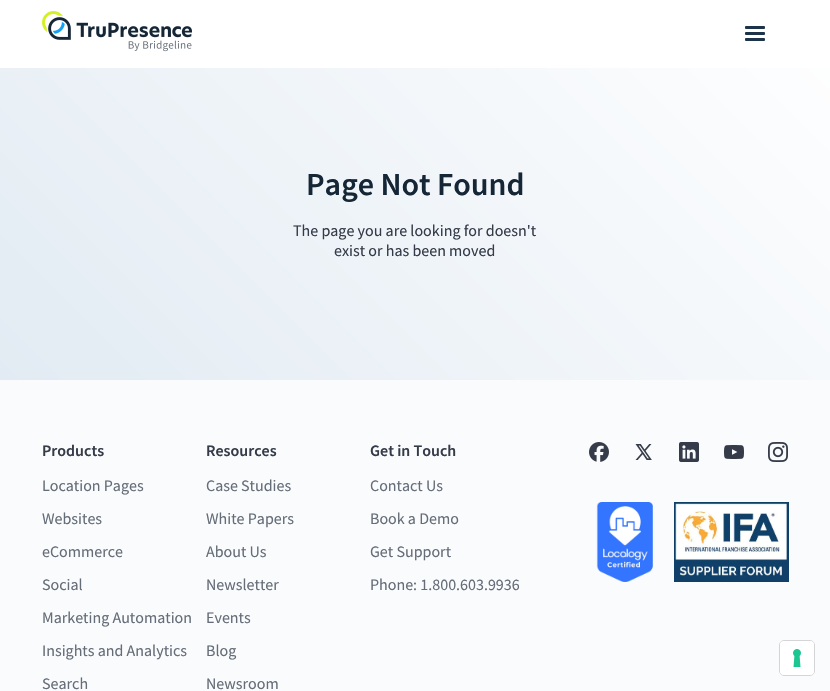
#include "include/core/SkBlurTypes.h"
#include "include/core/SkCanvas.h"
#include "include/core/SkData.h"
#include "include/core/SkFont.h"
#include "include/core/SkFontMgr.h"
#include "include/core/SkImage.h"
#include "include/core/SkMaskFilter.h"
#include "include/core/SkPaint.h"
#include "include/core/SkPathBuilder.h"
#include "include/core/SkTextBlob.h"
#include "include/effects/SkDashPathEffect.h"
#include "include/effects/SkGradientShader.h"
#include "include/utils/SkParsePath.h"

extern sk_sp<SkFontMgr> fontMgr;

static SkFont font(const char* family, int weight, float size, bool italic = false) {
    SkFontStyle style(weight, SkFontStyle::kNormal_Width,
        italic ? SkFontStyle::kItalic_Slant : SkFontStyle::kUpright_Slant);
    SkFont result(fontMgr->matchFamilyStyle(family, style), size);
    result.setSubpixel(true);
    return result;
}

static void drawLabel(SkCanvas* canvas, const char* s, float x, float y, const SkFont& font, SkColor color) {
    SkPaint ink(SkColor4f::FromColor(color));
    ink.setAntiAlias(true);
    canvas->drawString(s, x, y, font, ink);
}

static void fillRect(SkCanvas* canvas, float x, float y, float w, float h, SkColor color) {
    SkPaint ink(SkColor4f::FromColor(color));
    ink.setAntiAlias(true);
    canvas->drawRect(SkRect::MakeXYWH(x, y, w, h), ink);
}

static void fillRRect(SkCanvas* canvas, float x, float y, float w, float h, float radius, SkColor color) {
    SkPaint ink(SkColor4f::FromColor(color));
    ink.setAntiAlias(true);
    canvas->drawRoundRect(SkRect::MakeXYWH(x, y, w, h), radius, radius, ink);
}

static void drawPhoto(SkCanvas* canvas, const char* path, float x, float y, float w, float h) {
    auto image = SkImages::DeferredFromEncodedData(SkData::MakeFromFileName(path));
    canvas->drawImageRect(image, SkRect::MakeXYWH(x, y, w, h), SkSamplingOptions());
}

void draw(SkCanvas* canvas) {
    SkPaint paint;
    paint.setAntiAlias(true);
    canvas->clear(0xFFFFFFFF);
    drawPhoto(canvas, "assets/img1.png", 42, 11, 150, 41);
    drawPhoto(canvas, "assets/img2.png", 745, 26, 20, 15);
    {
        const SkColor colors[] = {0xFFE2EBF3, 0xFFFFFFFF};
        const float stops[] = {0, 1};
        const SkPoint ends[] = {{113, 493}, {718, -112}};
        paint.setShader(SkGradientShader::MakeLinear(ends, colors, stops, 2, SkTileMode::kClamp));
        paint.setAlpha(255);
    }
    canvas->drawRect(SkRect::MakeXYWH(0, 68, 830, 312), paint);
    SkFont font1 = font("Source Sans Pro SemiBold", 600, 32);
    drawLabel(canvas, "Page Not Found", 306, 195, font1, 0xFF152637);
    SkFont font2 = font("Source Sans Pro", 400, 16);
    drawLabel(canvas, "The page you are looking for doesn't", 293, 236, font2, 0xFF353B48);
    drawLabel(canvas, "exist or has been moved", 334, 256, font2, 0xFF353B48);
    fillRect(canvas, 0, 380, 830, 311, 0xFFFAFBFD);
    SkFont font3 = font("Source Sans Pro SemiBold", 600, 16);
    drawLabel(canvas, "Products", 42, 456, font3, 0xFF353B48);
    drawLabel(canvas, "Location Pages", 42, 491, font2, 0xFF656D78);
    drawLabel(canvas, "Websites", 42, 524, font2, 0xFF656D78);
    drawLabel(canvas, "eCommerce", 42, 557, font2, 0xFF656D78);
    drawLabel(canvas, "Social", 42, 590, font2, 0xFF656D78);
    drawLabel(canvas, "Marketing Automation", 42, 623, font2, 0xFF656D78);
    drawLabel(canvas, "Insights and Analytics", 42, 656, font2, 0xFF656D78);
    drawLabel(canvas, "Search", 42, 689, font2, 0xFF656D78);
    drawLabel(canvas, "Resources", 206, 456, font3, 0xFF353B48);
    drawLabel(canvas, "Case Studies", 206, 491, font2, 0xFF656D78);
    drawLabel(canvas, "White Papers", 206, 524, font2, 0xFF656D78);
    drawLabel(canvas, "About Us", 206, 557, font2, 0xFF656D78);
    drawLabel(canvas, "Newsletter", 206, 590, font2, 0xFF656D78);
    drawLabel(canvas, "Events", 206, 623, font2, 0xFF656D78);
    drawLabel(canvas, "Blog", 206, 656, font2, 0xFF656D78);
    drawLabel(canvas, "Newsroom", 206, 689, font2, 0xFF656D78);
    drawLabel(canvas, "Get in Touch", 370, 456, font3, 0xFF353B48);
    drawLabel(canvas, "Contact Us", 370, 491, font2, 0xFF656D78);
    drawLabel(canvas, "Book a Demo", 370, 524, font2, 0xFF656D78);
    drawLabel(canvas, "Get Support", 370, 557, font2, 0xFF656D78);
    drawLabel(canvas, "Phone: 1.800.603.9936", 370, 590, font2, 0xFF656D78);
    drawPhoto(canvas, "assets/img3.png", 589, 442, 20, 20);
    drawPhoto(canvas, "assets/img4.png", 635, 444, 17, 16);
    drawPhoto(canvas, "assets/img5.png", 679, 442, 20, 20);
    drawPhoto(canvas, "assets/img6.png", 724, 445, 20, 14);
    drawPhoto(canvas, "assets/img7.png", 768, 442, 20, 20);
    drawPhoto(canvas, "assets/img8.png", 596, 502, 57, 80);
    drawPhoto(canvas, "assets/img9.png", 674, 502, 115, 80);
    paint.setStroke(true);
    paint.setStrokeWidth(1);
    paint.setShader(nullptr);
    paint.setColor(0xFFD5D5D7);
    canvas->drawRoundRect(SkRect::MakeXYWH(779.5f, 640.5f, 35, 35), 4.5f, 4.5f, paint);
    fillRRect(canvas, 780, 641, 34, 34, 4, 0xFFFFFFFF);
    drawPhoto(canvas, "assets/img10.png", 793, 649, 8, 18);
}
